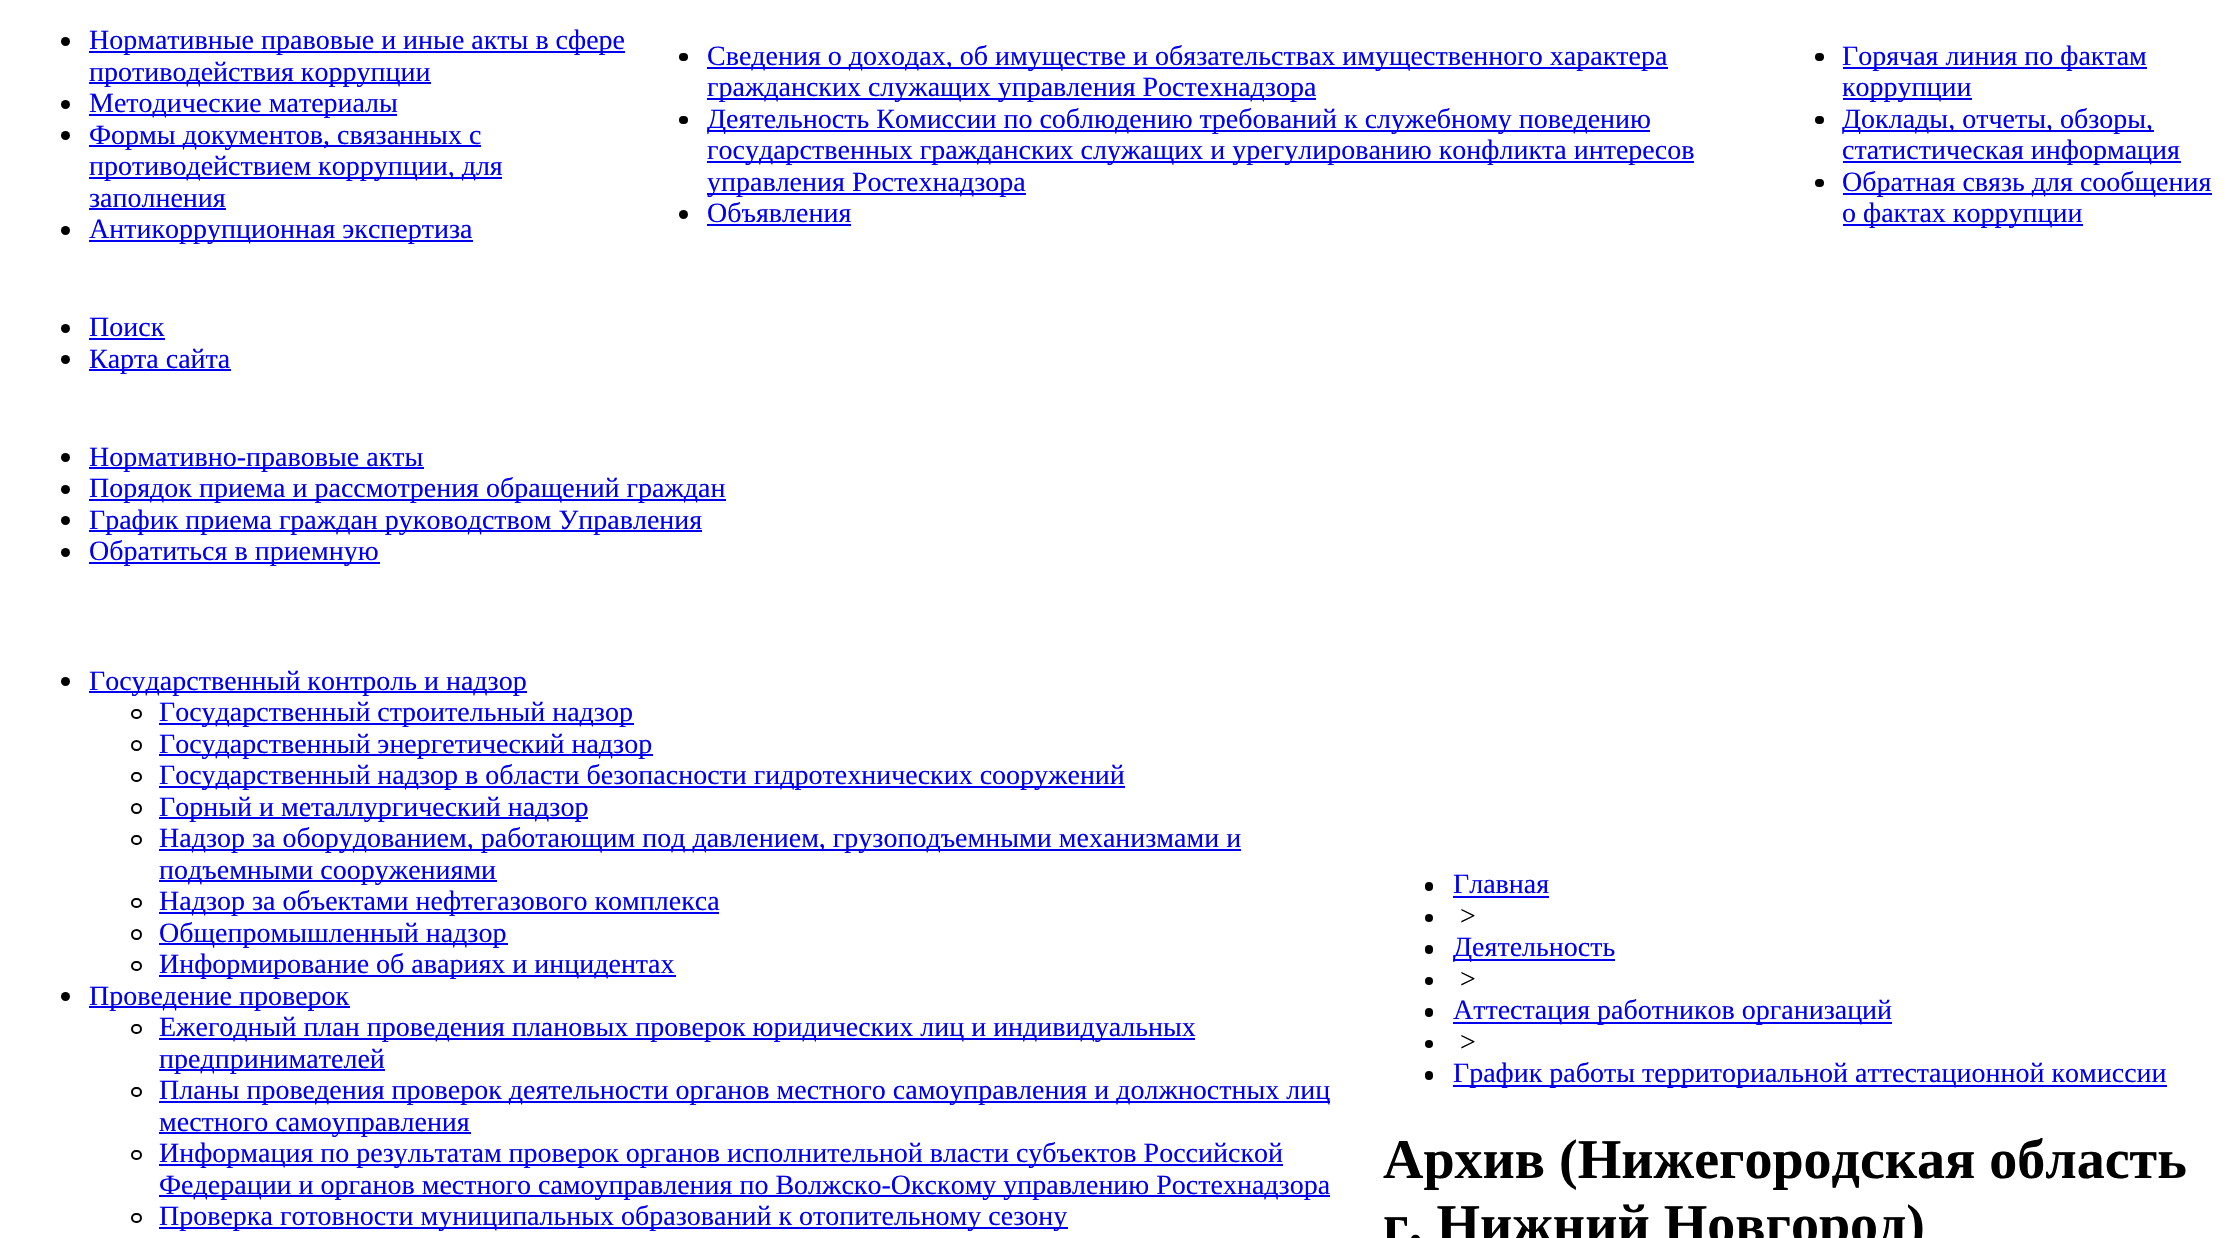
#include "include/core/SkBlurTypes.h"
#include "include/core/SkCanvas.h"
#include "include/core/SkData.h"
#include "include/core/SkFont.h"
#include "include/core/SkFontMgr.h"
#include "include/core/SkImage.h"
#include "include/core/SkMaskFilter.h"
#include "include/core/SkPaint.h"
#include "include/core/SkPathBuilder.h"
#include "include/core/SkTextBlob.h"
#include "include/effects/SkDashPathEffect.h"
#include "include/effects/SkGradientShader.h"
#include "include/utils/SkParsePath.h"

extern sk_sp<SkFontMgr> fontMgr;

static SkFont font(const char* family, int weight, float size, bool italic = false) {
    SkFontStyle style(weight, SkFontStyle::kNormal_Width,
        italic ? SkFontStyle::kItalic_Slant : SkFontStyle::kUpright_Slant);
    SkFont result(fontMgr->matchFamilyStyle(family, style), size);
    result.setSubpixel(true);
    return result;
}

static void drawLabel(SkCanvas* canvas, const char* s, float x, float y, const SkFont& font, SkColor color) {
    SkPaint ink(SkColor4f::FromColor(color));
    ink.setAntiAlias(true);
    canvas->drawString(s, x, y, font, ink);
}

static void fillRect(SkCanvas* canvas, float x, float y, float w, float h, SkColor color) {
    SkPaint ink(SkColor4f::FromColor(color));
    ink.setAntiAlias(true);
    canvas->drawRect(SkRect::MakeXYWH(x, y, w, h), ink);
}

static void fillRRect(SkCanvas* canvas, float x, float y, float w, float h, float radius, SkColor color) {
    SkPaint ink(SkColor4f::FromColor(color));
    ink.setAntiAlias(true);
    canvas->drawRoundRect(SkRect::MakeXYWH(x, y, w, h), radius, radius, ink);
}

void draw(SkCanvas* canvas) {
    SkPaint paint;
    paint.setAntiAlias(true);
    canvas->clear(0xFFFFFFFF);
    paint.setColor(0xFF000000);
    canvas->drawCircle(65.5f, 41.5f, 4.5f, paint);
    fillRect(canvas, 89, 51, 536, 2, 0xFF0000EE);
    SkFont font1 = font("Liberation Serif", 400, 28);
    drawLabel(canvas, "Нормативные правовые и иные акты в сфере", 89, 49, font1, 0xFF0000EE);
    fillRect(canvas, 89, 82, 342, 2, 0xFF0000EE);
    drawLabel(canvas, "противодействия коррупции", 89, 81, font1, 0xFF0000EE);
    canvas->drawCircle(65.5f, 104.5f, 4.5f, paint);
    fillRect(canvas, 89, 114, 308, 2, 0xFF0000EE);
    drawLabel(canvas, "Методические материалы", 89, 112, font1, 0xFF0000EE);
    canvas->drawCircle(65.5f, 135.5f, 4.5f, paint);
    fillRect(canvas, 89, 145, 392, 2, 0xFF0000EE);
    drawLabel(canvas, "Формы документов, связанных с", 89, 144, font1, 0xFF0000EE);
    fillRect(canvas, 89, 177, 413, 2, 0xFF0000EE);
    drawLabel(canvas, "противодействием коррупции, для", 89, 175, font1, 0xFF0000EE);
    drawLabel(canvas, "заполнения", 89, 207, font1, 0xFF0000EE);
    fillRect(canvas, 89, 208, 137, 2, 0xFF0000EE);
    canvas->drawCircle(65.5f, 230.5f, 4.5f, paint);
    fillRect(canvas, 89, 240, 384, 2, 0xFF0000EE);
    drawLabel(canvas, "Антикоррупционная экспертиза", 89, 238, font1, 0xFF0000EE);
    fillRRect(canvas, 679, 53, 9, 8, 4, 0xFF000000);
    fillRect(canvas, 707, 67, 961, 2, 0xFF0000EE);
    drawLabel(canvas, "Сведения о доходах, об имуществе и обязательствах имущественного характера", 707, 65, font1, 0xFF0000EE);
    fillRect(canvas, 707, 98, 609, 2, 0xFF0000EE);
    drawLabel(canvas, "гражданских служащих управления Ростехнадзора", 707, 96, font1, 0xFF0000EE);
    fillRRect(canvas, 679, 116, 9, 8, 4, 0xFF000000);
    fillRect(canvas, 707, 130, 943, 2, 0xFF0000EE);
    drawLabel(canvas, "Деятельность Комиссии по соблюдению требований к служебному поведению", 707, 128, font1, 0xFF0000EE);
    fillRect(canvas, 707, 161, 987, 2, 0xFF0000EE);
    drawLabel(canvas, "государственных гражданских служащих и урегулированию конфликта интересов", 707, 159, font1, 0xFF0000EE);
    fillRect(canvas, 707, 193, 319, 2, 0xFF0000EE);
    drawLabel(canvas, "управления Ростехнадзора", 707, 191, font1, 0xFF0000EE);
    canvas->drawCircle(683.5f, 214.5f, 4.5f, paint);
    drawLabel(canvas, "Объявления", 707, 222, font1, 0xFF0000EE);
    fillRect(canvas, 707, 224, 144, 2, 0xFF0000EE);
    fillRRect(canvas, 1815, 53, 9, 8, 4, 0xFF000000);
    fillRect(canvas, 1843, 67, 304, 2, 0xFF0000EE);
    drawLabel(canvas, "Горячая линия по фактам", 1842, 65, font1, 0xFF0000EE);
    fillRect(canvas, 1843, 98, 129, 2, 0xFF0000EE);
    drawLabel(canvas, "коррупции", 1842, 96, font1, 0xFF0000EE);
    fillRRect(canvas, 1815, 116, 9, 8, 4, 0xFF000000);
    fillRect(canvas, 1843, 130, 311, 2, 0xFF0000EE);
    drawLabel(canvas, "Доклады, отчеты, обзоры,", 1842, 128, font1, 0xFF0000EE);
    fillRect(canvas, 1843, 161, 338, 2, 0xFF0000EE);
    drawLabel(canvas, "статистическая информация", 1842, 159, font1, 0xFF0000EE);
    fillRRect(canvas, 1815, 179, 9, 8, 4, 0xFF000000);
    fillRect(canvas, 1843, 193, 369, 2, 0xFF0000EE);
    drawLabel(canvas, "Обратная связь для сообщения", 1842, 191, font1, 0xFF0000EE);
    fillRect(canvas, 1843, 224, 240, 2, 0xFF0000EE);
    drawLabel(canvas, "о фактах коррупции", 1842, 222, font1, 0xFF0000EE);
    canvas->drawCircle(65.5f, 328.5f, 4.5f, paint);
    drawLabel(canvas, "Поиск", 89, 336, font1, 0xFF0000EE);
    fillRect(canvas, 89, 338, 76, 2, 0xFF0000EE);
    canvas->drawCircle(65.5f, 359.5f, 4.5f, paint);
    fillRect(canvas, 89, 369, 142, 2, 0xFF0000EE);
    drawLabel(canvas, "Карта сайта", 89, 368, font1, 0xFF0000EE);
    canvas->drawCircle(65.5f, 457.5f, 4.5f, paint);
    fillRect(canvas, 89, 467, 335, 2, 0xFF0000EE);
    drawLabel(canvas, "Нормативно-правовые акты", 89, 466, font1, 0xFF0000EE);
    canvas->drawCircle(65.5f, 489.5f, 4.5f, paint);
    fillRect(canvas, 89, 499, 637, 2, 0xFF0000EE);
    drawLabel(canvas, "Порядок приема и рассмотрения обращений граждан", 89, 497, font1, 0xFF0000EE);
    canvas->drawCircle(65.5f, 520.5f, 4.5f, paint);
    fillRect(canvas, 89, 530, 613, 2, 0xFF0000EE);
    drawLabel(canvas, "График приема граждан руководством Управления", 89, 529, font1, 0xFF0000EE);
    canvas->drawCircle(65.5f, 552.5f, 4.5f, paint);
    fillRect(canvas, 89, 562, 291, 2, 0xFF0000EE);
    drawLabel(canvas, "Обратиться в приемную", 89, 560, font1, 0xFF0000EE);
    canvas->drawCircle(65.5f, 681.5f, 4.5f, paint);
    fillRect(canvas, 89, 691, 438, 2, 0xFF0000EE);
    drawLabel(canvas, "Государственный контроль и надзор", 89, 690, font1, 0xFF0000EE);
    paint.setStroke(true);
    paint.setStrokeWidth(2);
    canvas->drawRoundRect(SkRect::MakeXYWH(132, 710, 9, 8), 4, 4, paint);
    fillRect(canvas, 159, 723, 475, 2, 0xFF0000EE);
    drawLabel(canvas, "Государственный строительный надзор", 159, 721, font1, 0xFF0000EE);
    canvas->drawCircle(136.5f, 745.5f, 4.5f, paint);
    fillRect(canvas, 159, 754, 494, 2, 0xFF0000EE);
    drawLabel(canvas, "Государственный энергетический надзор", 159, 753, font1, 0xFF0000EE);
    canvas->drawRoundRect(SkRect::MakeXYWH(132, 773, 9, 8), 4, 4, paint);
    fillRect(canvas, 159, 786, 966, 2, 0xFF0000EE);
    drawLabel(canvas, "Государственный надзор в области безопасности гидротехнических сооружений", 159, 784, font1, 0xFF0000EE);
    canvas->drawCircle(136.5f, 808.5f, 4.5f, paint);
    fillRect(canvas, 159, 817, 429, 2, 0xFF0000EE);
    drawLabel(canvas, "Горный и металлургический надзор", 159, 816, font1, 0xFF0000EE);
    canvas->drawRoundRect(SkRect::MakeXYWH(132, 836, 9, 8), 4, 4, paint);
    fillRect(canvas, 159, 849, 1082, 2, 0xFF0000EE);
    drawLabel(canvas, "Надзор за оборудованием, работающим под давлением, грузоподъемными механизмами и", 159, 847, font1, 0xFF0000EE);
    fillRect(canvas, 159, 880, 338, 2, 0xFF0000EE);
    drawLabel(canvas, "подъемными сооружениями", 159, 879, font1, 0xFF0000EE);
    canvas->drawRoundRect(SkRect::MakeXYWH(132, 899, 9, 8), 4, 4, paint);
    fillRect(canvas, 159, 912, 560, 2, 0xFF0000EE);
    drawLabel(canvas, "Надзор за объектами нефтегазового комплекса", 159, 910, font1, 0xFF0000EE);
    canvas->drawCircle(136.5f, 934.5f, 4.5f, paint);
    fillRect(canvas, 159, 943, 349, 2, 0xFF0000EE);
    drawLabel(canvas, "Общепромышленный надзор", 159, 942, font1, 0xFF0000EE);
    canvas->drawRoundRect(SkRect::MakeXYWH(132, 962, 9, 8), 4, 4, paint);
    fillRect(canvas, 159, 975, 517, 2, 0xFF0000EE);
    drawLabel(canvas, "Информирование об авариях и инцидентах", 159, 973, font1, 0xFF0000EE);
    paint.setStroke(false);
    canvas->drawCircle(65.5f, 996.5f, 4.5f, paint);
    fillRect(canvas, 89, 1006, 261, 2, 0xFF0000EE);
    drawLabel(canvas, "Проведение проверок", 89, 1005, font1, 0xFF0000EE);
    paint.setStroke(true);
    canvas->drawRoundRect(SkRect::MakeXYWH(132, 1025, 9, 8), 4, 4, paint);
    fillRect(canvas, 159, 1038, 1036, 2, 0xFF0000EE);
    drawLabel(canvas, "Ежегодный план проведения плановых проверок юридических лиц и индивидуальных", 159, 1036, font1, 0xFF0000EE);
    fillRect(canvas, 159, 1069, 226, 2, 0xFF0000EE);
    drawLabel(canvas, "предпринимателей", 159, 1068, font1, 0xFF0000EE);
    canvas->drawRoundRect(SkRect::MakeXYWH(132, 1088, 9, 8), 4, 4, paint);
    fillRect(canvas, 159, 1101, 1171, 2, 0xFF0000EE);
    drawLabel(canvas, "Планы проведения проверок деятельности органов местного самоуправления и должностных лиц", 159, 1099, font1, 0xFF0000EE);
    fillRect(canvas, 159, 1132, 312, 2, 0xFF0000EE);
    drawLabel(canvas, "местного самоуправления", 159, 1131, font1, 0xFF0000EE);
    canvas->drawRoundRect(SkRect::MakeXYWH(132, 1151, 9, 8), 4, 4, paint);
    fillRect(canvas, 159, 1164, 1124, 2, 0xFF0000EE);
    drawLabel(canvas, "Информация по результатам проверок органов исполнительной власти субъектов Российской", 159, 1162, font1, 0xFF0000EE);
    fillRect(canvas, 159, 1195, 1171, 2, 0xFF0000EE);
    drawLabel(canvas, "Федерации и органов местного самоуправления по Волжско-Окскому управлению Ростехнадзора", 159, 1194, font1, 0xFF0000EE);
    canvas->drawRoundRect(SkRect::MakeXYWH(132, 1214, 9, 8), 4, 4, paint);
    fillRect(canvas, 159, 1227, 909, 2, 0xFF0000EE);
    drawLabel(canvas, "Проверка готовности муниципальных образований к отопительному сезону", 159, 1225, font1, 0xFF0000EE);
    fillRRect(canvas, 1425, 882, 8, 9, 4, 0xFF000000);
    drawLabel(canvas, "Главная", 1453, 893, font1, 0xFF0000EE);
    fillRect(canvas, 1453, 896, 96, 2, 0xFF0000EE);
    paint.setStroke(false);
    canvas->drawCircle(1429, 918, 4, paint);
    drawLabel(canvas, ">", 1460, 925, font1, 0xFF000000);
    fillRRect(canvas, 1425, 945, 8, 9, 4, 0xFF000000);
    fillRect(canvas, 1453, 959, 162, 2, 0xFF0000EE);
    drawLabel(canvas, "Деятельность", 1453, 956, font1, 0xFF0000EE);
    canvas->drawCircle(1429, 981, 4, paint);
    drawLabel(canvas, ">", 1460, 988, font1, 0xFF000000);
    fillRRect(canvas, 1425, 1008, 8, 9, 4, 0xFF000000);
    fillRect(canvas, 1453, 1022, 439, 2, 0xFF0000EE);
    drawLabel(canvas, "Аттестация работников организаций", 1453, 1019, font1, 0xFF0000EE);
    canvas->drawCircle(1429, 1044, 4, paint);
    drawLabel(canvas, ">", 1460, 1051, font1, 0xFF000000);
    fillRRect(canvas, 1425, 1071, 8, 9, 4, 0xFF000000);
    fillRect(canvas, 1453, 1085, 714, 2, 0xFF0000EE);
    drawLabel(canvas, "График работы территориальной аттестационной комиссии", 1453, 1082, font1, 0xFF0000EE);
    SkFont font2 = font("Liberation Serif", 700, 56);
    drawLabel(canvas, "Архив (Нижегородская область", 1383, 1178, font2, 0xFF000000);
    drawLabel(canvas, "г. Нижний Новгород)", 1383, 1243, font2, 0xFF000000);
}
